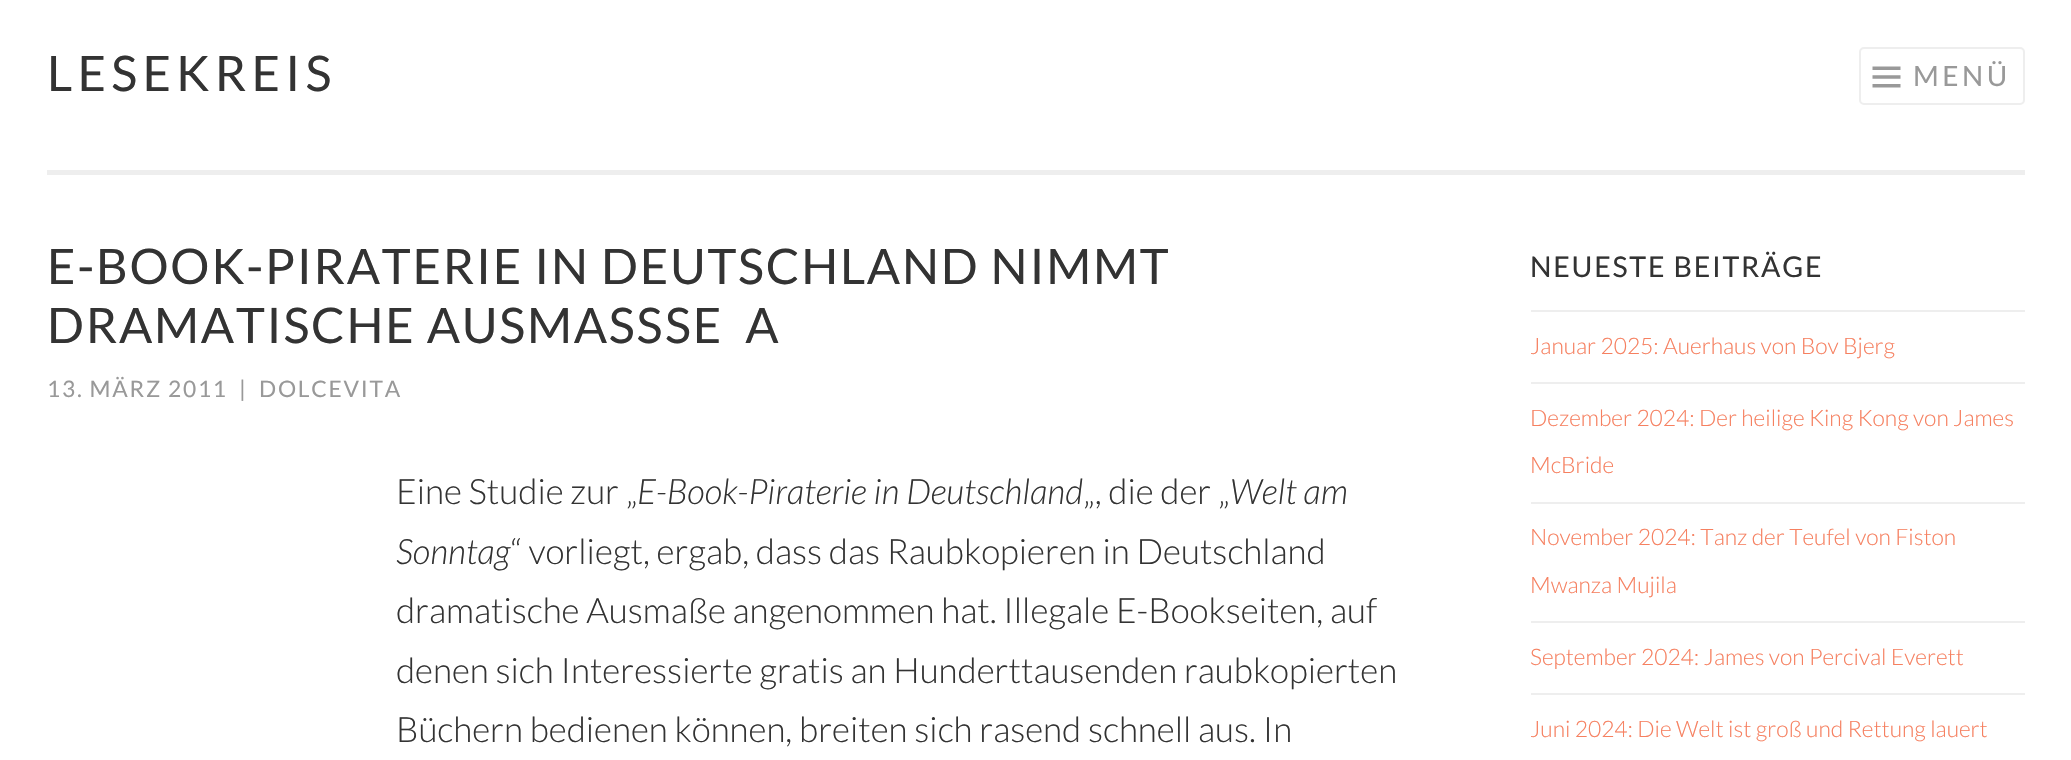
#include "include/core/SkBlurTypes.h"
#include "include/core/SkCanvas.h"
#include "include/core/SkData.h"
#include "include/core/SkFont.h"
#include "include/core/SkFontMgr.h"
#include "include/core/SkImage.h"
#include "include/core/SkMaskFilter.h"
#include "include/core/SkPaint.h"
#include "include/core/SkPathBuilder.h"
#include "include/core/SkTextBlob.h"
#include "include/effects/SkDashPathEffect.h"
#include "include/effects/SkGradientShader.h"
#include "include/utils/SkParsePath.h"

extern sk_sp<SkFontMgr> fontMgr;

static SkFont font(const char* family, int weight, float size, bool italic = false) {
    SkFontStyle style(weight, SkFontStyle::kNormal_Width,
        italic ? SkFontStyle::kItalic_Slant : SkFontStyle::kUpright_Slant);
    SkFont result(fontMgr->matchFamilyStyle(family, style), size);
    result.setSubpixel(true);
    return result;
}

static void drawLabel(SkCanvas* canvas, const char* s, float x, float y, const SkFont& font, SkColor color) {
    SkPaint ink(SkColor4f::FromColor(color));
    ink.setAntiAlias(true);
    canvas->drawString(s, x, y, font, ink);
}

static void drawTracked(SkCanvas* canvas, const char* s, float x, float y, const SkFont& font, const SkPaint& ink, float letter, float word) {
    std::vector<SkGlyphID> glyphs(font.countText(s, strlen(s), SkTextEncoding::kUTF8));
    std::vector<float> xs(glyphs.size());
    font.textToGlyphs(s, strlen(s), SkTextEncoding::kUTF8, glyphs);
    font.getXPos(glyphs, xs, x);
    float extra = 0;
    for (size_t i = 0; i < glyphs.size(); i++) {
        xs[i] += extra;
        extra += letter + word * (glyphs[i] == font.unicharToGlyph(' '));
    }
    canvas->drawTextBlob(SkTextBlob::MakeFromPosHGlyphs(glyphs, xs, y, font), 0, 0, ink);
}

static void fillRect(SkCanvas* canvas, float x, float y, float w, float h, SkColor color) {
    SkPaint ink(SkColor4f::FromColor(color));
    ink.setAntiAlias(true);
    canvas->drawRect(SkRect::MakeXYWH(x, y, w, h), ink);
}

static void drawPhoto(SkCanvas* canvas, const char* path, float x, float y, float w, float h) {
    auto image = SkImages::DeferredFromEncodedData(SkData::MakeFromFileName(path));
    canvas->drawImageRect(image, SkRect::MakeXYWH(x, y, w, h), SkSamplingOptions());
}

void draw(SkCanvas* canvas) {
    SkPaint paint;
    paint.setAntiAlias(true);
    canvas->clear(0xFFFFFFFF);
    fillRect(canvas, 47, 170, 1978, 5, 0xFFEEEEEE);
    SkFont font1 = font("Lato", 400, 49);
    paint.setColor(0xFF333333);
    drawTracked(canvas, "LESEKREIS", 47, 91, font1, paint, 5.25f, 0);
    paint.setStroke(true);
    paint.setStrokeWidth(2);
    paint.setColor(0xFFEEEEEE);
    canvas->drawRoundRect(SkRect::MakeXYWH(1860, 48, 164, 56), 4, 4, paint);
    drawPhoto(canvas, "assets/img1.png", 1872, 66, 29, 22);
    SkFont font2 = font("Lato", 400, 28);
    paint.setStroke(false);
    paint.setColor(0xFF999999);
    drawTracked(canvas, "MENÜ", 1913, 86, font2, paint, 3.5f, 0);
    paint.setColor(0xFF333333);
    drawTracked(canvas, "E-BOOK-PIRATERIE IN DEUTSCHLAND NIMMT", 47, 284, font1, paint, 1.75f, 0);
    drawTracked(canvas, "DRAMATISCHE AUSMASS", 47, 343, font1, paint, 1.75f, 0);
    drawTracked(canvas, "SE A", 665, 343, font1, paint, 1.75f, 11);
    SkFont font3 = font("Lato", 400, 22.75f);
    paint.setColor(0xFF999999);
    drawTracked(canvas, "13. MÄRZ 2011", 47, 397, font3, paint, 1.75f, 0);
    drawTracked(canvas, "|", 239, 397, font3, paint, 1.75f, 0);
    drawTracked(canvas, "DOLCEVITA", 259, 397, font3, paint, 1.75f, 0);
    SkFont font4 = font("Lato", 300, 35);
    drawLabel(canvas, "Eine Studie zur „", 396, 504, font4, 0xFF333333);
    SkFont font5 = font("Lato", 300, 35, true);
    drawLabel(canvas, "E-Book-Piraterie in Deutschland", 637, 504, font5, 0xFF333333);
    drawLabel(canvas, "„, die der „", 1083, 504, font4, 0xFF333333);
    drawLabel(canvas, "Welt am", 1230, 504, font5, 0xFF333333);
    drawLabel(canvas, "Sonntag", 396, 564, font5, 0xFF333333);
    drawLabel(canvas, "“ vorliegt, ergab, dass das Raubkopieren in Deutschland", 510, 564, font4, 0xFF333333);
    drawLabel(canvas, "dramatische Ausmaße angenommen hat. Illegale E-Bookseiten, auf", 396, 623, font4, 0xFF333333);
    drawLabel(canvas, "denen sich Interessierte gratis an Hunderttausenden raubkopierten", 396, 683, font4, 0xFF333333);
    drawLabel(canvas, "Büchern bedienen können, breiten sich rasend schnell aus. In", 396, 742, font4, 0xFF333333);
    SkFont font6 = font("Lato", 400, 28.5f);
    paint.setColor(0xFF333333);
    drawTracked(canvas, "NEUESTE BEITRÄGE", 1530, 277, font6, paint, 1.75f, 0);
    fillRect(canvas, 1531, 310, 494, 2, 0xFFEEEEEE);
    SkFont font7 = font("Lato", 300, 22.75f);
    drawLabel(canvas, "Januar 2025: Auerhaus von Bov Bjerg", 1530, 354, font7, 0xFFF68060);
    fillRect(canvas, 1531, 382, 494, 2, 0xFFEEEEEE);
    drawLabel(canvas, "Dezember 2024: Der heilige King Kong von James", 1530, 426, font7, 0xFFF68060);
    drawLabel(canvas, "McBride", 1530, 473, font7, 0xFFF68060);
    fillRect(canvas, 1531, 502, 494, 2, 0xFFEEEEEE);
    drawLabel(canvas, "November 2024: Tanz der Teufel von Fiston", 1530, 545, font7, 0xFFF68060);
    drawLabel(canvas, "Mwanza Mujila", 1530, 593, font7, 0xFFF68060);
    fillRect(canvas, 1531, 621, 494, 2, 0xFFEEEEEE);
    drawLabel(canvas, "September 2024: James von Percival Everett", 1530, 665, font7, 0xFFF68060);
    fillRect(canvas, 1531, 693, 494, 2, 0xFFEEEEEE);
    drawLabel(canvas, "Juni 2024: Die Welt ist groß und Rettung lauert", 1530, 737, font7, 0xFFF68060);
}
